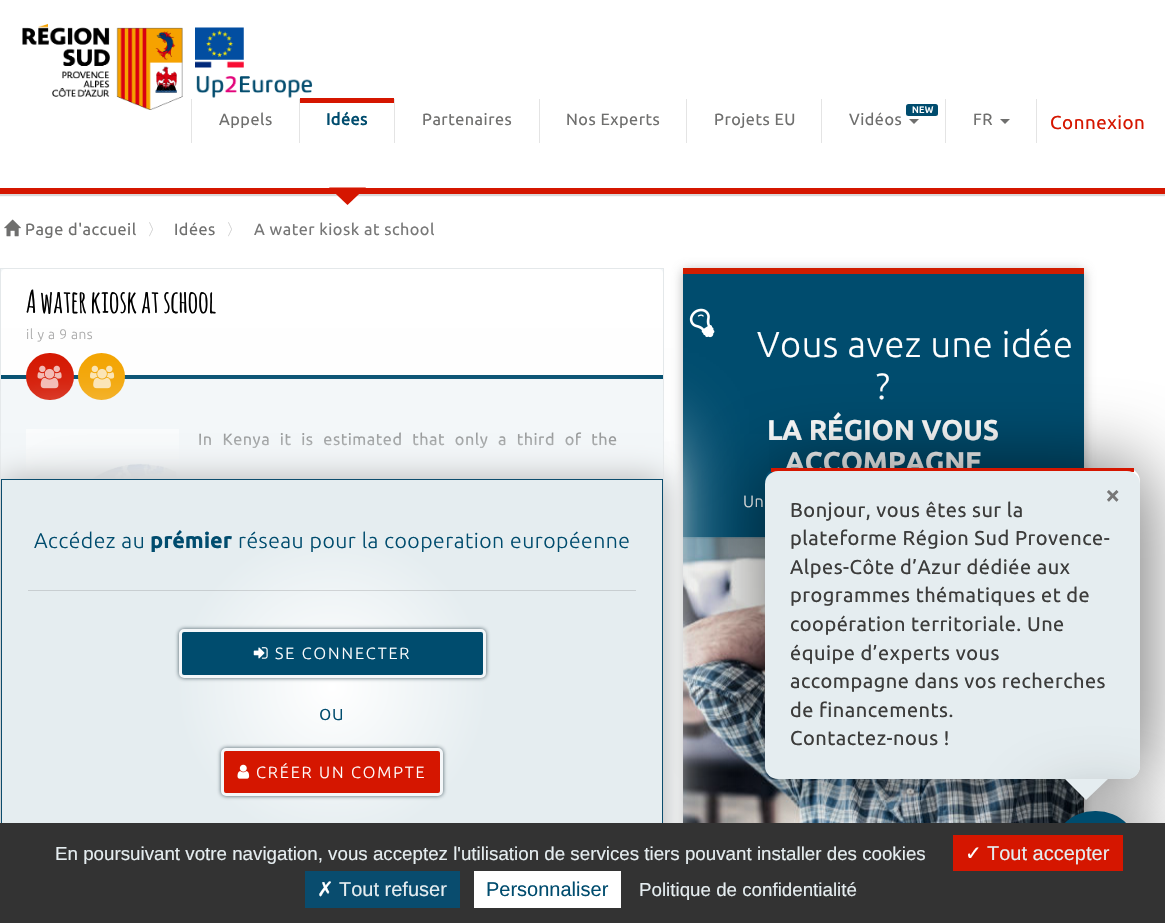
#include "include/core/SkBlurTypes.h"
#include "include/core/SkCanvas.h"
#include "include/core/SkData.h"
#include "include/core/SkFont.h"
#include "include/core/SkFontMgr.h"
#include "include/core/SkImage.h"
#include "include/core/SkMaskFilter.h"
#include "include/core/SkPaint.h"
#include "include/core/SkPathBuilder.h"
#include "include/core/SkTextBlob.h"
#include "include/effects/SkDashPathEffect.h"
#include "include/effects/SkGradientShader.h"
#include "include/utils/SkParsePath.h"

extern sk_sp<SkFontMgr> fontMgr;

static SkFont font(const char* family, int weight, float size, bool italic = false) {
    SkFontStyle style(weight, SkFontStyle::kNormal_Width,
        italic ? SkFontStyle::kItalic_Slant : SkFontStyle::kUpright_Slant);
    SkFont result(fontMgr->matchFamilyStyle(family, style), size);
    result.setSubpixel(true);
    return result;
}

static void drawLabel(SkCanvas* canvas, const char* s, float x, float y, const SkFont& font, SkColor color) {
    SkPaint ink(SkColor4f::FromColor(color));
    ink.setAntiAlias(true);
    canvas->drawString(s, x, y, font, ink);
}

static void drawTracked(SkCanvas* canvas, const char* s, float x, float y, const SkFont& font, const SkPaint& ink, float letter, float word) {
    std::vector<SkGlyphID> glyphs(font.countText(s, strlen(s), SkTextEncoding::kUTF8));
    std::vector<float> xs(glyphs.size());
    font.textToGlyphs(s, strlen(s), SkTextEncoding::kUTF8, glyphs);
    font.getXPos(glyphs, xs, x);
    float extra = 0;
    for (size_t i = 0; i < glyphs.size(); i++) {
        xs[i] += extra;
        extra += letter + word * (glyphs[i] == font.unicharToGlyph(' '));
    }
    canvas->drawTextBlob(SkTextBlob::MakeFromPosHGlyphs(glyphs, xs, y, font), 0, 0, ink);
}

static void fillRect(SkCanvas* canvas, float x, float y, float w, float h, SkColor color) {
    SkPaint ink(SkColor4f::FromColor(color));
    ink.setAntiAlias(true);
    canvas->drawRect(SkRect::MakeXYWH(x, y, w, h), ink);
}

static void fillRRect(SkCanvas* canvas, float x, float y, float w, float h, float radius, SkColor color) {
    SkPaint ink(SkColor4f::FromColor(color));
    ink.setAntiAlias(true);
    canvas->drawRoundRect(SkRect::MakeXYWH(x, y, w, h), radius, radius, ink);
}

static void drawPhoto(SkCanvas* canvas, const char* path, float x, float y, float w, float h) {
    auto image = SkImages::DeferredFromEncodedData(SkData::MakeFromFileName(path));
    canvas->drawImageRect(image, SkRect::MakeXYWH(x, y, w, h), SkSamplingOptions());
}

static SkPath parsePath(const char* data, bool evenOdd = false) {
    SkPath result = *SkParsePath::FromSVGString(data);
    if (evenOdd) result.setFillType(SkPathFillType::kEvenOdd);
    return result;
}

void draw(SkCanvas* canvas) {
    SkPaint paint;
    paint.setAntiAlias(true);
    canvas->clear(0xFFFFFFFF);
    paint.setColor(0x26000000);
    paint.setMaskFilter(SkMaskFilter::MakeBlur(kNormal_SkBlurStyle, 0.5f));
    canvas->drawRect(SkRect::MakeXYWH(0, 0, 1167, 196), paint);
    paint.setMaskFilter(nullptr);
    fillRect(canvas, 0, 0, 1165, 188, 0xFFFFFFFF);
    fillRect(canvas, 0, 188, 1165, 6, 0xFFD51600);
    drawPhoto(canvas, "assets/img1.png", 22, 23, 161, 87);
    drawPhoto(canvas, "assets/img2.png", 195, 27, 49, 41);
    drawPhoto(canvas, "assets/img3.png", 196, 75, 117, 23);
    fillRect(canvas, 191, 99, 1, 44, 0xFFE4E4E4);
    fillRect(canvas, 299, 99, 1, 44, 0xFFE4E4E4);
    SkFont font1 = font("Ubuntu", 400, 16.25f);
    paint.setColor(0xFF6F6F6E);
    drawTracked(canvas, "Appels", 219, 125, font1, paint, 0.5f, 0);
    fillRect(canvas, 394, 99, 1, 44, 0xFFE4E4E4);
    fillRect(canvas, 300, 98, 94, 5, 0xFFD51600);
    SkFont font2 = font("Ubuntu", 700, 16.25f);
    paint.setColor(0xFF004C6E);
    drawTracked(canvas, "Idées", 326, 125, font2, paint, 0.5f, 0);
    paint.setColor(0xFFD51600);
    canvas->drawPath(parsePath("M329 187.5H366L347.5 205Z"), paint);
    fillRect(canvas, 539, 99, 1, 44, 0xFFE4E4E4);
    paint.setColor(0xFF6F6F6E);
    drawTracked(canvas, "Partenaires", 422, 125, font1, paint, 0.5f, 0);
    fillRect(canvas, 686, 99, 1, 44, 0xFFE4E4E4);
    drawTracked(canvas, "Nos Experts", 566, 125, font1, paint, 0.5f, 0);
    fillRect(canvas, 821, 99, 1, 44, 0xFFE4E4E4);
    drawTracked(canvas, "Projets EU", 714, 125, font1, paint, 0.5f, 0);
    fillRect(canvas, 945, 99, 1, 44, 0xFFE4E4E4);
    fillRRect(canvas, 906, 104, 32, 12, 2.5f, 0xFF004C6E);
    SkFont font3 = font("Ubuntu", 700, 9);
    paint.setColor(0xFFFFFFFF);
    drawTracked(canvas, "NEW", 912, 113, font3, paint, 0.5f, 0);
    paint.setColor(0xFF6F6F6E);
    drawTracked(canvas, "Vidéos", 849, 125, font1, paint, 0.5f, 0);
    canvas->drawPath(parsePath("M909 119H919L914 124Z"), paint);
    fillRect(canvas, 1036, 99, 1, 44, 0xFFE4E4E4);
    drawTracked(canvas, "FR", 973, 125, font1, paint, 0.5f, 0);
    canvas->drawPath(parsePath("M1000 119H1010L1005 124Z"), paint);
    SkFont font4 = font("Ubuntu", 400, 18.75f);
    paint.setColor(0xFFD51600);
    drawTracked(canvas, "Connexion", 1050, 129, font4, paint, 0.5f, 0);
    drawPhoto(canvas, "assets/img4.png", 4, 219, 17, 18);
    paint.setColor(0xFF6F6F6E);
    drawTracked(canvas, "Page d'accueil", 25, 235, font1, paint, 0.5f, 0);
    SkFont font5 = font("WenQuanYi Zen Hei", 500, 16.25f);
    paint.setColor(0xFFCCCCCC);
    drawTracked(canvas, "〉", 147, 235, font5, paint, 0.5f, 0);
    paint.setColor(0xFF6F6F6E);
    drawTracked(canvas, "Idées", 174, 235, font1, paint, 0.5f, 0);
    paint.setColor(0xFFCCCCCC);
    drawTracked(canvas, "〉", 226, 235, font5, paint, 0.5f, 0);
    paint.setColor(0xFF777777);
    drawTracked(canvas, "A water kiosk at school", 254, 235, font1, paint, 0.5f, 0);
    fillRect(canvas, 1, 269, 662, 210, 0xFFF3F7F9);
    paint.setStroke(true);
    paint.setStrokeWidth(1);
    paint.setColor(0xFFE4E8EA);
    canvas->drawRect(SkRect::MakeXYWH(0.5f, 268.5f, 663, 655), paint);
    paint.setStroke(false);
    paint.setColor(0xFFFFFFFF);
    canvas->drawPath(parsePath("M5 269H659C661 269 663 271 663 273V379H1V273C1 271 3 269 5 269Z"), paint);
    fillRect(canvas, 1, 375, 662, 4, 0xFF004C6E);
    SkFont font6 = font("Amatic", 700, 31.25f);
    paint.setColor(0xFF000000);
    drawTracked(canvas, "A water kiosk at school", 26, 313, font6, paint, 0.5f, 0);
    SkFont font7 = font("Ubuntu", 300, 13.75f);
    paint.setColor(0xFFAAAAAA);
    drawTracked(canvas, "il y a 9 ans", 26, 339, font7, paint, 0.5f, 0);
    fillRRect(canvas, 26, 353, 48, 47, 23.5f, 0xFFD51600);
    drawPhoto(canvas, "assets/img5.png", 37, 365, 25, 24);
    paint.setColor(0xFFF3A400);
    canvas->drawCircle(101.5f, 376.5f, 23.5f, paint);
    drawPhoto(canvas, "assets/img6.png", 90, 365, 25, 24);
    fillRect(canvas, 26, 429, 153, 50, 0xFFFFFFFF);
    drawPhoto(canvas, "assets/img7.png", 90, 460, 87, 19);
    paint.setColor(0xFF3C3C3B);
    drawTracked(canvas, "In Kenya it is estimated that only a third of the", 198, 445, font1, paint, 0.5f, 5.5f);
    paint.setColor(0x85757575);
    paint.setMaskFilter(SkMaskFilter::MakeBlur(kNormal_SkBlurStyle, 5.5f));
    canvas->drawRect(SkRect::MakeXYWH(683, 270, 401, 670), paint);
    paint.setMaskFilter(nullptr);
    fillRect(canvas, 683, 538, 401, 275, 0xFF402C2B);
    fillRect(canvas, 683, 274, 401, 264, 0xFF004C6E);
    drawPhoto(canvas, "assets/img10.png", 689, 308, 26, 30);
    drawPhoto(canvas, "assets/img11.png", 683, 537, 401, 286);
    paint.setColor(0xFFF3F7F9);
    paint.setMaskFilter(SkMaskFilter::MakeBlur(kNormal_SkBlurStyle, 35.5f));
    canvas->drawRect(SkRect::MakeXYWH(1, 434, 662, 416), paint);
    paint.setMaskFilter(nullptr);
    paint.setMaskFilter(SkMaskFilter::MakeBlur(kNormal_SkBlurStyle, 9.5f));
    canvas->drawRect(SkRect::MakeXYWH(8, 470, 661, 416), paint);
    paint.setMaskFilter(nullptr);
    paint.setColor(0xFFB3B3B3);
    paint.setMaskFilter(SkMaskFilter::MakeBlur(kNormal_SkBlurStyle, 15.5f));
    canvas->drawRect(SkRect::MakeXYWH(1, 479, 662, 416), paint);
    paint.setMaskFilter(nullptr);
    {
        const SkColor colors[] = {0xFFFFFFFF, 0xFFE5EDF0};
        const float stops[] = {0, 0.4f};
        paint.setShader(SkGradientShader::MakeRadial({-327, 687}, 389, colors, stops, 2, SkTileMode::kClamp));
        paint.setAlpha(255);
    }
    canvas->drawRect(SkRect::MakeXYWH(2, 480, 1, 343), paint);
    {
        const SkColor colors[] = {0xFFFFFFFF, 0xFFE5EDF0};
        const float stops[] = {0, 0.4f};
        paint.setShader(SkGradientShader::MakeRadial({332, 687}, 389, colors, stops, 2, SkTileMode::kClamp));
        paint.setAlpha(255);
    }
    canvas->drawRect(SkRect::MakeXYWH(3, 480, 658, 343), paint);
    {
        const SkColor colors[] = {0xFFDCDCDC, 0xFFC8CED1};
        const float stops[] = {0, 0.4f};
        paint.setShader(SkGradientShader::MakeRadial({332, 687}, 389, colors, stops, 2, SkTileMode::kClamp));
        paint.setAlpha(255);
    }
    canvas->drawRect(SkRect::MakeXYWH(28, 590, 608, 1), paint);
    {
        const SkColor colors[] = {0xFFFFFFFF, 0xFFE5EDF0};
        const float stops[] = {0, 0.4f};
        paint.setShader(SkGradientShader::MakeRadial({991, 687}, 389, colors, stops, 2, SkTileMode::kClamp));
        paint.setAlpha(255);
    }
    canvas->drawRect(SkRect::MakeXYWH(661, 480, 1, 343), paint);
    paint.setStroke(true);
    paint.setShader(nullptr);
    paint.setColor(0xFF0B4C6D);
    canvas->drawRect(SkRect::MakeXYWH(1.5f, 479.5f, 661, 415), paint);
    SkFont font8 = font("Ubuntu", 300, 21.25f);
    paint.setStroke(false);
    paint.setColor(0xFF004C6E);
    drawTracked(canvas, "Accédez au", 34, 548, font8, paint, 0.5f, 0);
    SkFont font9 = font("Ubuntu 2", 700, 21.25f);
    drawTracked(canvas, "prémier", 150, 548, font9, paint, 0.5f, 0);
    drawTracked(canvas, "réseau pour la cooperation européenne", 238, 548, font8, paint, 0.5f, 0);
    paint.setColor(0xB0061D29);
    paint.setMaskFilter(SkMaskFilter::MakeBlur(kNormal_SkBlurStyle, 2));
    canvas->drawRoundRect(SkRect::MakeXYWH(179, 629, 307, 49), 5, 5, paint);
    paint.setMaskFilter(nullptr);
    paint.setColor(0xFF004C6E);
    canvas->drawRoundRect(SkRect::MakeXYWH(180.5f, 630.5f, 304, 46), 3.5f, 3.5f, paint);
    paint.setStroke(true);
    paint.setStrokeWidth(3);
    paint.setColor(0xFFF4F7F9);
    canvas->drawRoundRect(SkRect::MakeXYWH(180.5f, 630.5f, 304, 46), 3.5f, 3.5f, paint);
    drawPhoto(canvas, "assets/img8.png", 253, 647, 15, 12);
    SkFont font10 = font("Ubuntu", 300, 16.25f);
    paint.setStroke(false);
    paint.setColor(0xFFFFFFFF);
    drawTracked(canvas, "SE CONNECTER", 275, 659, font10, paint, 1.9f, 0);
    paint.setColor(0xFF004C6E);
    drawTracked(canvas, "ou", 319, 720, font8, paint, 0.5f, 0);
    paint.setColor(0xB0061D29);
    paint.setMaskFilter(SkMaskFilter::MakeBlur(kNormal_SkBlurStyle, 2));
    canvas->drawRoundRect(SkRect::MakeXYWH(221, 748, 222, 48), 5, 5, paint);
    paint.setMaskFilter(nullptr);
    paint.setColor(0xFFD51600);
    canvas->drawRoundRect(SkRect::MakeXYWH(222.5f, 749.5f, 219, 45), 3.5f, 3.5f, paint);
    paint.setStroke(true);
    paint.setColor(0xFFF4F7F9);
    canvas->drawRoundRect(SkRect::MakeXYWH(222.5f, 749.5f, 219, 45), 3.5f, 3.5f, paint);
    drawPhoto(canvas, "assets/img9.png", 237, 764, 13, 15);
    paint.setStroke(false);
    paint.setColor(0xFFFFFFFF);
    drawTracked(canvas, "CRÉER UN COMPTE", 256, 778, font10, paint, 1.9f, 0);
    fillRect(canvas, 683, 268, 401, 6, 0xFFD01D00);
    SkFont font11 = font("Ubuntu", 300, 36.25f);
    drawTracked(canvas, "Vous avez une idée", 757, 357, font11, paint, 0.5f, 0);
    drawTracked(canvas, "?", 876, 399, font11, paint, 0.5f, 0);
    SkFont font12 = font("Ubuntu 2", 700, 27.5f);
    drawTracked(canvas, "LA RÉGION VOUS", 767, 440, font12, paint, 0.6f, 0);
    drawTracked(canvas, "ACCOMPAGNE", 785, 472, font12, paint, 0.6f, 0);
    drawTracked(canvas, "Un", 743, 507, font10, paint, 0.5f, 0);
    canvas->save();
    canvas->clipPath(parsePath("M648 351H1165V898H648ZM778 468H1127C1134 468 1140 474 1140 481V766C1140 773 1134 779 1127 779H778C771 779 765 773 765 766V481C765 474 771 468 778 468Z", true), true);
    paint.setColor(0x99000000);
    paint.setMaskFilter(SkMaskFilter::MakeBlur(kNormal_SkBlurStyle, 39));
    canvas->drawRoundRect(SkRect::MakeXYWH(766, 469, 375, 311), 13, 13, paint);
    paint.setMaskFilter(nullptr);
    canvas->restore();
    fillRect(canvas, 771, 468, 363, 4, 0xFFD51600);
    fillRRect(canvas, 765, 471, 375, 308, 13, 0xFFE5EDF0);
    SkFont font13 = font("Ubuntu", 700, 26);
    drawLabel(canvas, "×", 1105, 504, font13, 0xFF777777);
    SkFont font14 = font("Ubuntu", 400, 20);
    paint.setColor(0xFF3C3C3B);
    drawTracked(canvas, "Bonjour, vous êtes sur la", 790, 517, font14, paint, 0.5f, 0);
    drawTracked(canvas, "plateforme Région Sud Provence-", 790, 545, font14, paint, 0.5f, 0);
    drawTracked(canvas, "Alpes-Côte d’Azur dédiée aux", 790, 574, font14, paint, 0.5f, 0);
    drawTracked(canvas, "programmes thématiques et de", 790, 602, font14, paint, 0.5f, 0);
    drawTracked(canvas, "coopération territoriale. Une", 790, 631, font14, paint, 0.5f, 0);
    drawTracked(canvas, "équipe d’experts vous", 790, 660, font14, paint, 0.5f, 0);
    drawTracked(canvas, "accompagne dans vos recherches", 790, 688, font14, paint, 0.5f, 0);
    drawTracked(canvas, "de financements.", 790, 717, font14, paint, 0.5f, 0);
    drawTracked(canvas, "Contactez-nous !", 790, 745, font14, paint, 0.5f, 0);
    paint.setColor(0x99000000);
    paint.setMaskFilter(SkMaskFilter::MakeBlur(kNormal_SkBlurStyle, 39));
    canvas->drawRoundRect(SkRect::MakeXYWH(1053, 813, 88, 87), 43.5f, 43.5f, paint);
    paint.setMaskFilter(nullptr);
    paint.setColor(0xFFE5EDF0);
    canvas->drawPath(parsePath("M1065 779H1108L1086 800Z"), paint);
    fillRRect(canvas, 1051, 811, 89, 88, 44, 0xFF004C6E);
    fillRect(canvas, 0, 823, 1165, 100, 0xFF333333);
    SkFont font15 = font("Liberation Sans", 400, 18.75f);
    drawLabel(canvas, "En poursuivant votre navigation, vous acceptez l'utilisation de services tiers pouvant installer des cookies", 55, 860, font15, 0xFFE5EDF0);
    fillRect(canvas, 953, 835, 170, 36, 0xFFD51600);
    SkFont font16 = font("DejaVu Sans", 400, 20);
    drawLabel(canvas, "✓", 965, 860, font16, 0xFFFFFFFF);
    SkFont font17 = font("Liberation Sans", 400, 20);
    drawLabel(canvas, "Tout accepter", 987, 860, font17, 0xFFE5EDF0);
    fillRect(canvas, 305, 871, 155, 37, 0xFF094C6E);
    drawLabel(canvas, "✗", 317, 896, font16, 0xFFFFFFFF);
    drawLabel(canvas, "Tout refuser", 339, 896, font17, 0xFFE5EDF0);
    fillRect(canvas, 474, 871, 147, 37, 0xFFFFFFFF);
    drawLabel(canvas, "Personnaliser", 486, 896, font17, 0xFF004C6E);
    drawLabel(canvas, "Politique de confidentialité", 639, 896, font15, 0xFFE5EDF0);
}
